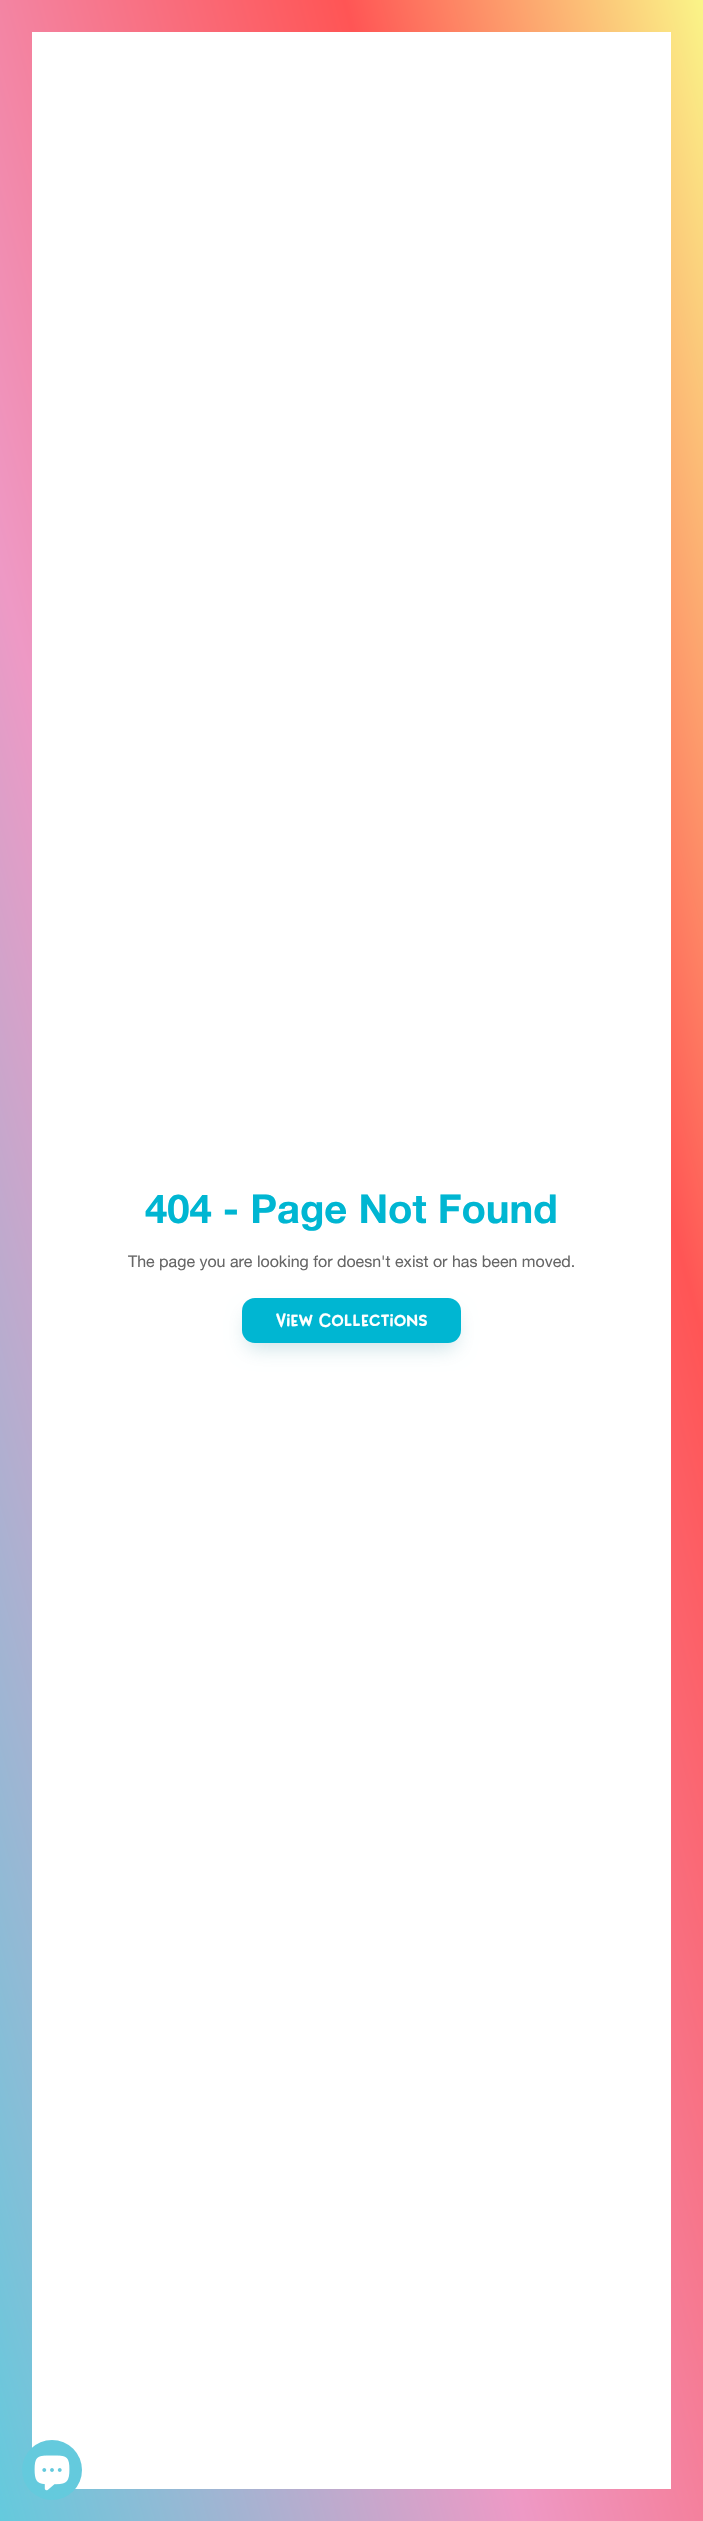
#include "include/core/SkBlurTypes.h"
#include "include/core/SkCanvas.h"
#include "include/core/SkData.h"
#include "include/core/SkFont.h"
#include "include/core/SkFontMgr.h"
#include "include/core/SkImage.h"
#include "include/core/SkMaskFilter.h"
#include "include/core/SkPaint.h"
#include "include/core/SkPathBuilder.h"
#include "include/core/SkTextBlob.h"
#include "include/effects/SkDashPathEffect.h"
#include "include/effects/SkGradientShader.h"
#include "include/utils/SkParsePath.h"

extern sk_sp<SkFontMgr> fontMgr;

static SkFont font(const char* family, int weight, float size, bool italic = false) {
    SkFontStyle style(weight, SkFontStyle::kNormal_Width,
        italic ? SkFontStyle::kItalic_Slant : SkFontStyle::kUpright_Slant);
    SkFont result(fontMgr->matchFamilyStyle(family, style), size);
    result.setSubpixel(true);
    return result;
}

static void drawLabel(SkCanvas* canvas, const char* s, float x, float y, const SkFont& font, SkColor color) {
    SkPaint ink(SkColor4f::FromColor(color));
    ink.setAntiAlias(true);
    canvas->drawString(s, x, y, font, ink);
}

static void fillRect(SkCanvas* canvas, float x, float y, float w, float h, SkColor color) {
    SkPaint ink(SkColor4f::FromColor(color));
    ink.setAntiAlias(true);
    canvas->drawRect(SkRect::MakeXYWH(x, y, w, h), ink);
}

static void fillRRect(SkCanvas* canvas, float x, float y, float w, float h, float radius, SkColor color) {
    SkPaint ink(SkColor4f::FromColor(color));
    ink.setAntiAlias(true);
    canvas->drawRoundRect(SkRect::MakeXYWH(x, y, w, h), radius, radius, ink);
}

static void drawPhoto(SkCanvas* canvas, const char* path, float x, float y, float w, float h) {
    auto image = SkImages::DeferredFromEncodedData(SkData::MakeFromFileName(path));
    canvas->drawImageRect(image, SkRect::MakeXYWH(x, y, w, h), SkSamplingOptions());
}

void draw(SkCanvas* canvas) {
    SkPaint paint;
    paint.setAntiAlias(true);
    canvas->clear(0xFFFFFFFF);
    {
        const SkColor colors[] = {0xFF64CADD, 0xFFEE99C5, 0xFFFF5555, 0xFFFAF588};
        const float stops[] = {0, 0.38f, 0.74f, 1};
        const SkPoint ends[] = {{-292, 1433}, {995, 1088}};
        paint.setShader(SkGradientShader::MakeLinear(ends, colors, stops, 4, SkTileMode::kClamp));
        paint.setAlpha(255);
    }
    canvas->drawRect(SkRect::MakeXYWH(0, 0, 703, 2521), paint);
    fillRect(canvas, 32, 32, 639, 2457, 0xFFFFFFFF);
    SkFont font1 = font("Helvetica Neue", 700, 40);
    drawLabel(canvas, "404 - Page Not Found", 145, 1223, font1, 0xFF00B6D2);
    SkFont font2 = font("Helvetica Neue", 400, 16);
    drawLabel(canvas, "The page you are looking for doesn't exist or has been moved.", 128, 1267, font2, 0xFF666666);
    paint.setShader(nullptr);
    paint.setColor(0x33006C80);
    paint.setMaskFilter(SkMaskFilter::MakeBlur(kNormal_SkBlurStyle, 10));
    canvas->drawRoundRect(SkRect::MakeXYWH(247, 1313, 209, 35), 8, 8, paint);
    paint.setMaskFilter(nullptr);
    fillRRect(canvas, 242, 1298, 219, 45, 13, 0xFF00B6D2);
    SkFont font3 = font("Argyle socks", 700, 19.25f);
    drawLabel(canvas, "View Collections", 276, 1327, font3, 0xFFFFFFFF);
    paint.setColor(0xFF64CADD);
    canvas->drawCircle(52, 2470, 30, paint);
    drawPhoto(canvas, "assets/img1.png", 34, 2455, 36, 36);
}
